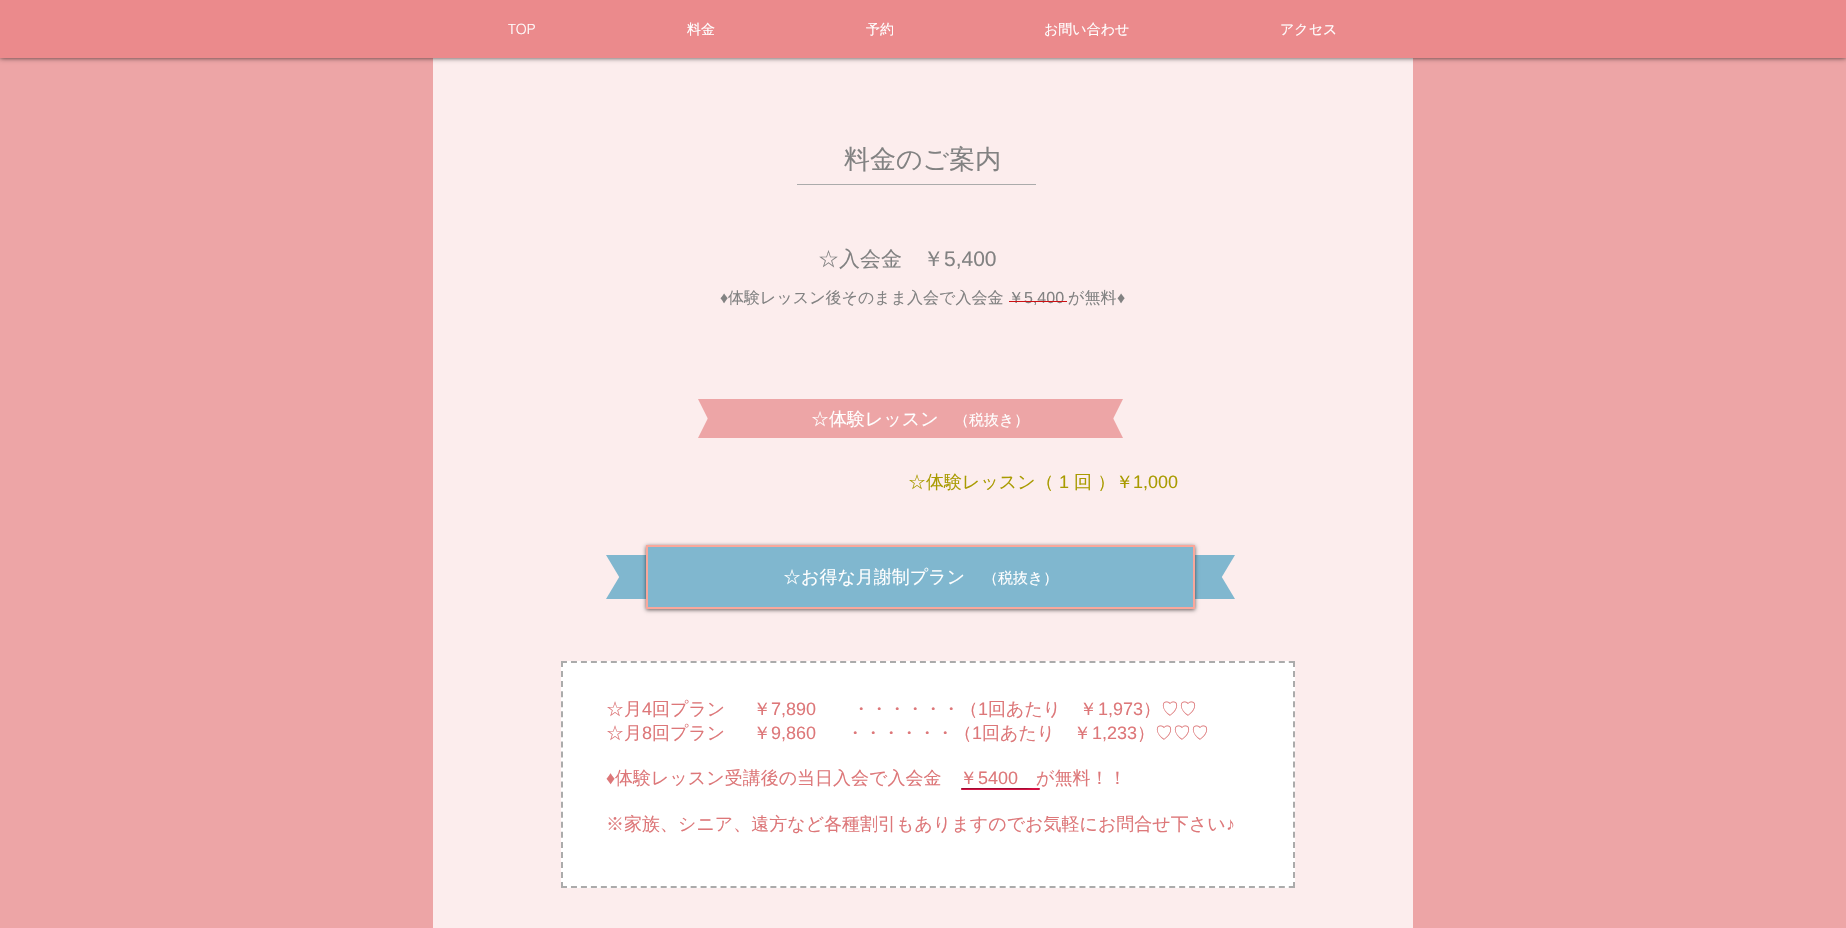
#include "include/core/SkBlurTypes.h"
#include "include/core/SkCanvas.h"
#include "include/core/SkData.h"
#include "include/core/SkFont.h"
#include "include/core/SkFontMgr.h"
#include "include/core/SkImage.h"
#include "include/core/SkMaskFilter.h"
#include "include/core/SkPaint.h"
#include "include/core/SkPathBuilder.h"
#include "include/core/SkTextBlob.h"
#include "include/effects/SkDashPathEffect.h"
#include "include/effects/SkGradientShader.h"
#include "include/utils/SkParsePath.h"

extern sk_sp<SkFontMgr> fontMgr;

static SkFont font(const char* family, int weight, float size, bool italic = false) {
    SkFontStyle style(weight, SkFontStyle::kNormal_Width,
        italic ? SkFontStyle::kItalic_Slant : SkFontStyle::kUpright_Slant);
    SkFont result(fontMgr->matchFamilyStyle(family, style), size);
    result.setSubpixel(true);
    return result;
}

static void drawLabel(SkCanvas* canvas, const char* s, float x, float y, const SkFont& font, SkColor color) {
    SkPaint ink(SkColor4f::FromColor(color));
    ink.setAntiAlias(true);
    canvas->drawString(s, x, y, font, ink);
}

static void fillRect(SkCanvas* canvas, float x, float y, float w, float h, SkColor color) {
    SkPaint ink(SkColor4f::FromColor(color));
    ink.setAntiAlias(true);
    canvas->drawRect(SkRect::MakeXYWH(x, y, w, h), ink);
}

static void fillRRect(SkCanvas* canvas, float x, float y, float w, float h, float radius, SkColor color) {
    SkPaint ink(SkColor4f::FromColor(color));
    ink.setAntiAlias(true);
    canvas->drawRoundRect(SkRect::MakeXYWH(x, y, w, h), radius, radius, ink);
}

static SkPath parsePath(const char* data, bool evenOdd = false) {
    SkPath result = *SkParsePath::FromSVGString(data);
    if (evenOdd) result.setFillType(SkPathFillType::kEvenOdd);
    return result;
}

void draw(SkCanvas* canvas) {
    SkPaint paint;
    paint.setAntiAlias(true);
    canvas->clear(0xFFEDA5A6);
    fillRect(canvas, 433, 58, 980, 870, 0xFFFCEDED);
    paint.setColor(0xB3000000);
    paint.setMaskFilter(SkMaskFilter::MakeBlur(kNormal_SkBlurStyle, 2.5f));
    canvas->drawRect(SkRect::MakeXYWH(0, 0, 1846, 58), paint);
    paint.setMaskFilter(nullptr);
    fillRect(canvas, 0, 0, 1846, 58, 0xFFEB8A8C);
    SkFont font1 = font("helvetica", 300, 14);
    drawLabel(canvas, "TOP", 508, 34, font1, 0xFFFFFFFF);
    SkFont font2 = font("WenQuanYi Zen Hei", 500, 14);
    drawLabel(canvas, "料金", 687, 34, font2, 0xFFFFFFFF);
    drawLabel(canvas, "予約", 866, 34, font2, 0xFFFFFFFF);
    drawLabel(canvas, "お問い合わせ", 1044, 34, font2, 0xFFFFFFFF);
    drawLabel(canvas, "アクセス", 1280, 34, font2, 0xFFFFFFFF);
    SkFont font3 = font("WenQuanYi Zen Hei", 500, 26);
    drawLabel(canvas, "料金のご案内", 844, 168, font3, 0xFF828282);
    fillRect(canvas, 797, 184, 239, 1, 0xFFABABAB);
    SkFont font4 = font("WenQuanYi Zen Hei", 500, 21);
    drawLabel(canvas, "☆入会金　￥", 818, 266, font4, 0xFF828282);
    SkFont font5 = font("Liberation Sans", 400, 21);
    drawLabel(canvas, "5,400", 944, 266, font5, 0xFF828282);
    SkFont font6 = font("Liberation Sans", 400, 16);
    drawLabel(canvas, "♦", 720, 303, font6, 0xFF828282);
    SkFont font7 = font("WenQuanYi Zen Hei", 500, 16);
    drawLabel(canvas, "体験レッスン後そのまま入会で入会金", 728, 303, font7, 0xFF828282);
    drawLabel(canvas, "￥", 1008, 303, font7, 0xFF828282);
    drawLabel(canvas, "5,400", 1024, 303, font6, 0xFF828282);
    drawLabel(canvas, "が無料", 1068, 303, font7, 0xFF828282);
    drawLabel(canvas, "♦", 1117, 303, font6, 0xFF828282);
    fillRect(canvas, 1009, 301, 58, 1, 0xFFCC1013);
    canvas->save();
    canvas->clipRect(SkRect::MakeXYWH(698, 399, 213, 20));
    paint.setColor(0xFFEDA5A6);
    canvas->drawPath(parsePath("M698 399H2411L1411 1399H1198Z"), paint);
    canvas->restore();
    canvas->save();
    canvas->clipRect(SkRect::MakeXYWH(910, 399, 213, 20));
    canvas->drawPath(parsePath("M-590 399H1123L623 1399H410Z"), paint);
    canvas->restore();
    canvas->save();
    canvas->clipRect(SkRect::MakeXYWH(698, 418, 213, 20));
    canvas->drawPath(parsePath("M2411 438H698L1198-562H1411Z"), paint);
    canvas->restore();
    canvas->save();
    canvas->clipRect(SkRect::MakeXYWH(910, 418, 213, 20));
    canvas->drawPath(parsePath("M1123 438H-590L410-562H623Z"), paint);
    canvas->restore();
    SkFont font8 = font("WenQuanYi Zen Hei", 500, 18);
    drawLabel(canvas, "☆体験レッスン", 811, 425, font8, 0xFFFFFFFF);
    SkFont font9 = font("WenQuanYi Zen Hei", 500, 15);
    drawLabel(canvas, "（税抜き）", 954, 425, font9, 0xFFFFFFFF);
    drawLabel(canvas, "☆体験レッスン（", 908, 488, font8, 0xFFA99B00);
    SkFont font10 = font("Liberation Sans", 400, 18);
    drawLabel(canvas, "1", 1059, 488, font10, 0xFFA99B00);
    drawLabel(canvas, "回 ）￥", 1074, 488, font8, 0xFFA99B00);
    drawLabel(canvas, "1,000", 1133, 488, font10, 0xFFA99B00);
    canvas->save();
    canvas->clipRect(SkRect::MakeXYWH(606, 555, 629, 22));
    paint.setColor(0xFF80B7CF);
    canvas->drawPath(parsePath("M606 555H666V655Z"), paint);
    canvas->drawPath(parsePath("M1175 555H1235L1175 655Z"), paint);
    canvas->restore();
    canvas->save();
    canvas->clipRect(SkRect::MakeXYWH(606, 577, 629, 22));
    canvas->drawPath(parsePath("M666 599H606L666 499Z"), paint);
    canvas->drawPath(parsePath("M1235 599H1175V499Z"), paint);
    canvas->restore();
    paint.setColor(0x99000000);
    paint.setMaskFilter(SkMaskFilter::MakeBlur(kNormal_SkBlurStyle, 2));
    canvas->drawRect(SkRect::MakeXYWH(646, 546, 549, 64), paint);
    paint.setMaskFilter(nullptr);
    paint.setColor(0xFF80B7CF);
    canvas->drawRect(SkRect::MakeXYWH(647, 546, 547, 62), paint);
    paint.setStroke(true);
    paint.setStrokeWidth(2);
    paint.setColor(0xFFF9A79B);
    canvas->drawRect(SkRect::MakeXYWH(647, 546, 547, 62), paint);
    drawLabel(canvas, "☆お得な月謝制プラン", 783, 583, font8, 0xFFFFFFFF);
    drawLabel(canvas, "（税抜き）", 983, 583, font9, 0xFFFFFFFF);
    fillRect(canvas, 561, 661, 734, 227, 0xFFFFFFFF);
    paint.setColor(0xFFABABAB);
    paint.setPathEffect(SkDashPathEffect::Make({{6, 3.97f}}, 0));
    canvas->drawPath(parsePath("M561 662H1295"), paint);
    paint.setPathEffect(nullptr);
    paint.setPathEffect(SkDashPathEffect::Make({{6, 4.05f}}, 0));
    canvas->drawPath(parsePath("M1294 661V888"), paint);
    paint.setPathEffect(nullptr);
    paint.setPathEffect(SkDashPathEffect::Make({{6, 3.97f}}, 0));
    canvas->drawPath(parsePath("M561 887H1295"), paint);
    paint.setPathEffect(nullptr);
    paint.setPathEffect(SkDashPathEffect::Make({{6, 4.05f}}, 0));
    canvas->drawPath(parsePath("M562 661V888"), paint);
    paint.setPathEffect(nullptr);
    drawLabel(canvas, "☆月", 606, 715, font8, 0xFFDD7779);
    drawLabel(canvas, "4", 642, 715, font10, 0xFFDD7779);
    drawLabel(canvas, "回プラン", 652, 715, font8, 0xFFDD7779);
    drawLabel(canvas, "￥", 753, 715, font8, 0xFFDD7779);
    drawLabel(canvas, "7,890", 771, 715, font10, 0xFFDD7779);
    drawLabel(canvas, "・・・・・・（", 852, 715, font8, 0xFFDD7779);
    drawLabel(canvas, "1", 978, 715, font10, 0xFFDD7779);
    drawLabel(canvas, "回あたり　￥", 988, 715, font8, 0xFFDD7779);
    drawLabel(canvas, "1,973", 1098, 715, font10, 0xFFDD7779);
    drawLabel(canvas, "）♡♡", 1143, 715, font8, 0xFFDD7779);
    drawLabel(canvas, "☆月", 606, 739, font8, 0xFFDD7779);
    drawLabel(canvas, "8", 642, 739, font10, 0xFFDD7779);
    drawLabel(canvas, "回プラン", 652, 739, font8, 0xFFDD7779);
    drawLabel(canvas, "￥", 753, 739, font8, 0xFFDD7779);
    drawLabel(canvas, "9,860", 771, 739, font10, 0xFFDD7779);
    drawLabel(canvas, "・・・・・・（", 846, 739, font8, 0xFFDD7779);
    drawLabel(canvas, "1", 972, 739, font10, 0xFFDD7779);
    drawLabel(canvas, "回あたり　￥", 982, 739, font8, 0xFFDD7779);
    drawLabel(canvas, "1,233", 1092, 739, font10, 0xFFDD7779);
    drawLabel(canvas, "）♡♡♡", 1137, 739, font8, 0xFFDD7779);
    drawLabel(canvas, "♦", 606, 784, font10, 0xFFDD7779);
    drawLabel(canvas, "体験レッスン受講後の当日入会で入会金　￥", 615, 784, font8, 0xFFDD7779);
    drawLabel(canvas, "5400", 978, 784, font10, 0xFFDD7779);
    drawLabel(canvas, "が無料！！", 1036, 784, font8, 0xFFDD7779);
    drawLabel(canvas, "※家族、シニア、遠方など各種割引もありますのでお気軽にお問合せ下さい", 606, 830, font8, 0xFFDD7779);
    drawLabel(canvas, "♪", 1226, 830, font10, 0xFFDD7779);
    fillRRect(canvas, 961, 788, 79, 2, 1, 0xFFD61043);
    paint.setStroke(false);
    paint.setColor(0x40000000);
    canvas->drawPath(parsePath("M962 789L961 790C961 789 961 789 961 788H1033L1026 789ZM1038 788L1040 789C1040 788 1039 788 1038 788Z", true), paint);
}
